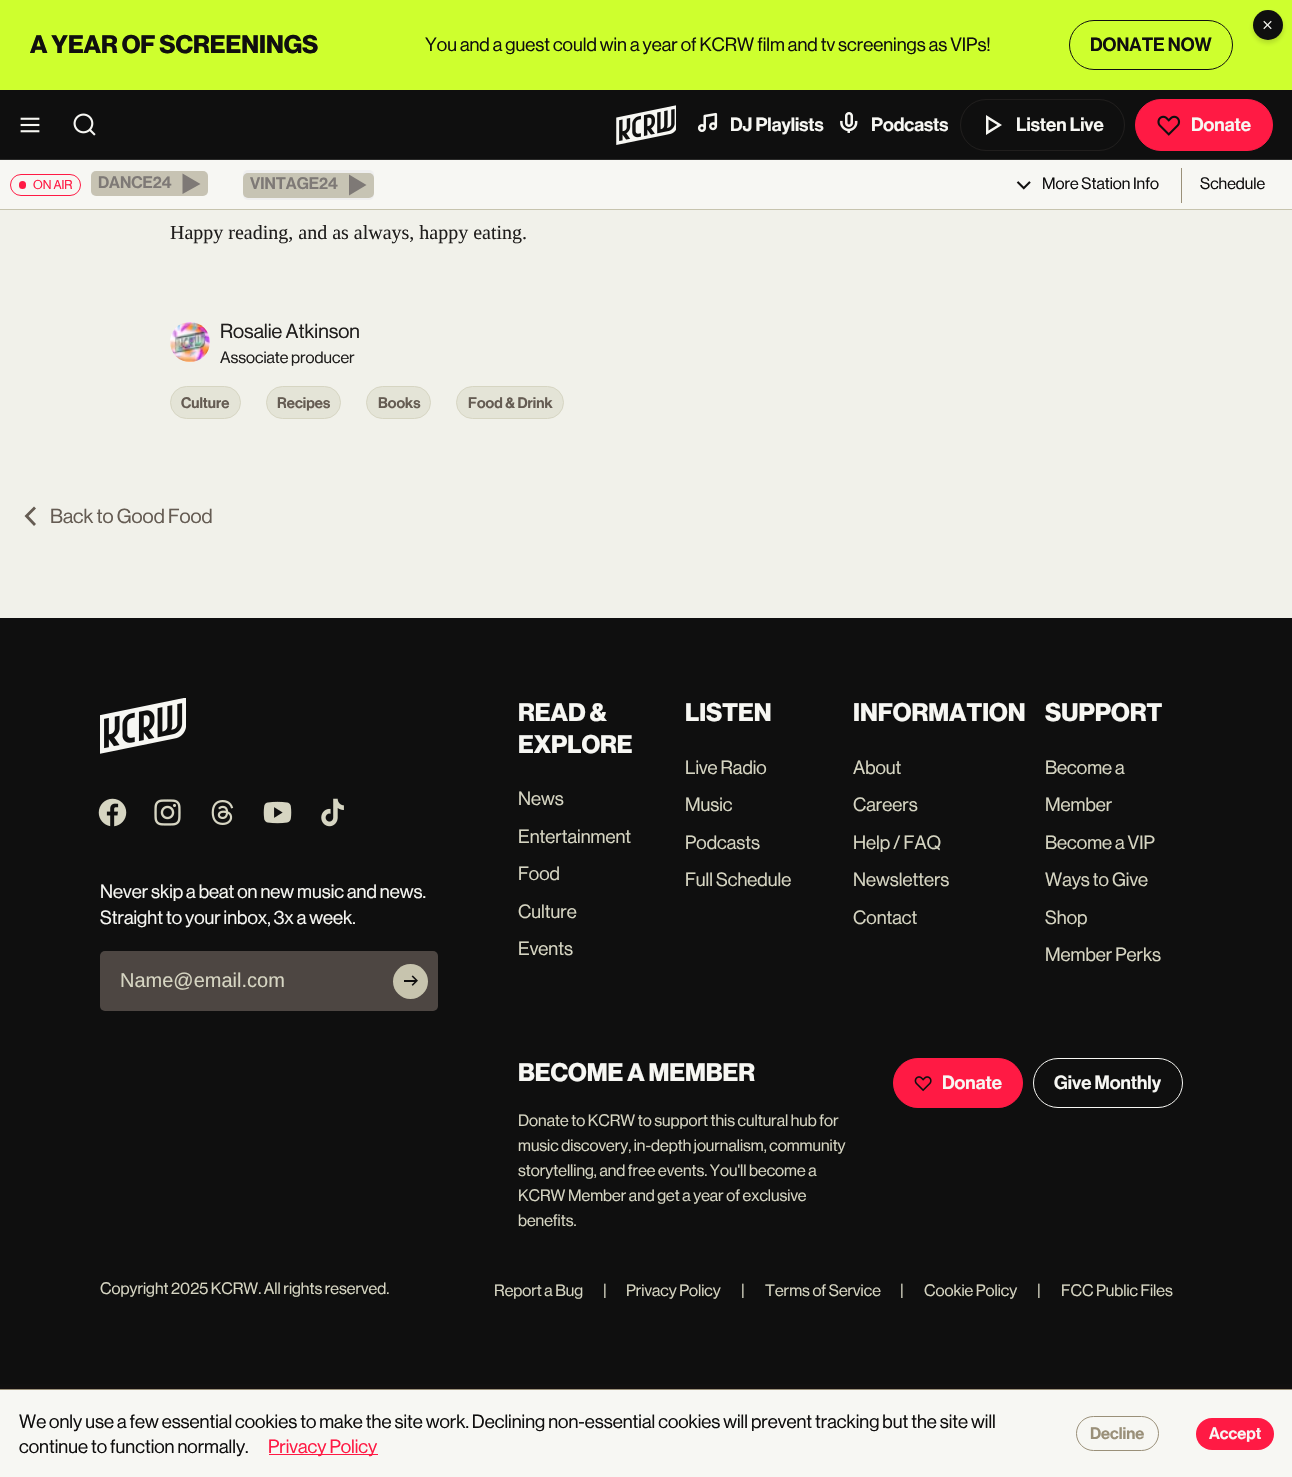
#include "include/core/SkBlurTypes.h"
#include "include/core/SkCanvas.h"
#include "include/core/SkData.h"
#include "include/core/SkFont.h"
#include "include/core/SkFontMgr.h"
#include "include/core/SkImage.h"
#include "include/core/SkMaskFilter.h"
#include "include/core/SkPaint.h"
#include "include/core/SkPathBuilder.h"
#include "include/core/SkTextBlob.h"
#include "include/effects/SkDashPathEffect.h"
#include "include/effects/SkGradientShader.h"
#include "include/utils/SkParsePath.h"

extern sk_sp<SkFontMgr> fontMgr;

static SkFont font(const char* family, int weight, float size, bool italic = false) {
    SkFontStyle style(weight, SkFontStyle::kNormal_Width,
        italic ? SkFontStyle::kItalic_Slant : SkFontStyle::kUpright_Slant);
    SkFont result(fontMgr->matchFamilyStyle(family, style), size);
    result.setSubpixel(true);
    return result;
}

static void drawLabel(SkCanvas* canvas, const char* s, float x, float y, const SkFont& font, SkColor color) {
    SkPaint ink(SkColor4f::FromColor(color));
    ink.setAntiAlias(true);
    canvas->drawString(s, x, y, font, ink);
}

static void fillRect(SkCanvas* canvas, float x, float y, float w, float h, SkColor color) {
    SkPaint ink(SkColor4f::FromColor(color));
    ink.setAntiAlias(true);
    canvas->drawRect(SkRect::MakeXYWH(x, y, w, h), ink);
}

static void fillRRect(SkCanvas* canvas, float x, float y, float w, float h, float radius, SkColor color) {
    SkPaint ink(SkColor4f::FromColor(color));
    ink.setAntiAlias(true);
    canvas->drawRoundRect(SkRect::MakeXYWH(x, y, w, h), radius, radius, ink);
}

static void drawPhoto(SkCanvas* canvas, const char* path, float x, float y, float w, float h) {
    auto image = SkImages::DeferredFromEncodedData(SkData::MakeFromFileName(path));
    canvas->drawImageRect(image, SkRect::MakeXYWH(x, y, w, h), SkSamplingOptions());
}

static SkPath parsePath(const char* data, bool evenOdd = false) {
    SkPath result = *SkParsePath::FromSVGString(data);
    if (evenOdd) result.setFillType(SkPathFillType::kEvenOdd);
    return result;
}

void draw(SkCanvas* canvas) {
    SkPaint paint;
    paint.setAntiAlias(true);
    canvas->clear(0xFFF1F1EA);
    fillRect(canvas, 0, 0, 1292, 90, 0xFFCEFF2E);
    SkFont font1 = font("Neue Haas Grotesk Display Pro", 700, 25);
    drawLabel(canvas, "A YEAR OF SCREENINGS", 30, 53, font1, 0xFF100F0F);
    SkFont font2 = font("Neue Haas Grotesk Display Pro", 500, 18.75f);
    drawLabel(canvas, "You and a guest could win a year of KCRW film and tv screenings as VIPs!", 425, 51, font2, 0xFF100F0F);
    paint.setStroke(true);
    paint.setStrokeWidth(1);
    paint.setColor(0xFF0F0F0F);
    canvas->drawRoundRect(SkRect::MakeXYWH(1069.5f, 20.5f, 163, 49), 24.5f, 24.5f, paint);
    SkFont font3 = font("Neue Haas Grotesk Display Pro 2", 500, 18.75f);
    drawLabel(canvas, "DONATE NOW", 1090, 51, font3, 0xFF100F0F);
    paint.setStroke(false);
    paint.setColor(0x290A0A0A);
    paint.setMaskFilter(SkMaskFilter::MakeBlur(kNormal_SkBlurStyle, 2.5f));
    canvas->drawRoundRect(SkRect::MakeXYWH(1253, 13, 30, 30), 15, 15, paint);
    paint.setMaskFilter(nullptr);
    paint.setColor(0xFF0F0F0F);
    canvas->drawCircle(1268, 25, 15, paint);
    drawPhoto(canvas, "assets/img1.png", 1263, 20, 9, 10);
    fillRect(canvas, 0, 90, 1292, 69, 0xFF0F0F0F);
    fillRect(canvas, 0, 159, 1292, 1, 0xFF2B2B2A);
    drawPhoto(canvas, "assets/img2.png", 20, 117, 20, 16);
    drawPhoto(canvas, "assets/img3.png", 73, 113, 23, 23);
    drawPhoto(canvas, "assets/img4.png", 616, 105, 60, 40);
    drawPhoto(canvas, "assets/img5.png", 697, 112, 21, 20);
    drawLabel(canvas, "DJ Playlists", 730, 131, font3, 0xFFF7F7F3);
    drawPhoto(canvas, "assets/img6.png", 840, 112, 18, 21);
    drawLabel(canvas, "Podcasts", 871, 131, font3, 0xFFF7F7F3);
    paint.setStroke(true);
    paint.setColor(0xFF201E1D);
    canvas->drawRoundRect(SkRect::MakeXYWH(960.5f, 99.5f, 164, 51), 25.5f, 25.5f, paint);
    paint.setStroke(false);
    paint.setColor(0xFFF7F7F3);
    canvas->drawPath(parsePath("M986 115L1002 125L986 135ZM988.5 119.5V130.5L997.5 125Z", true), paint);
    drawLabel(canvas, "Listen Live", 1016, 131, font3, 0xFFF7F7F3);
    paint.setColor(0xFFFF1A44);
    canvas->drawRoundRect(SkRect::MakeXYWH(1135.5f, 99.5f, 137, 51), 25.5f, 25.5f, paint);
    paint.setStroke(true);
    canvas->drawRoundRect(SkRect::MakeXYWH(1135.5f, 99.5f, 137, 51), 25.5f, 25.5f, paint);
    drawPhoto(canvas, "assets/img7.png", 1157, 115, 24, 21);
    drawLabel(canvas, "Donate", 1191, 131, font3, 0xFFF7F7F3);
    fillRect(canvas, 0, 160, 1292, 49, 0xFFF7F7F3);
    fillRect(canvas, 0, 209, 1292, 1, 0xFFC7C4AE);
    canvas->drawRoundRect(SkRect::MakeXYWH(10.5f, 174.5f, 70, 21), 10.5f, 10.5f, paint);
    fillRRect(canvas, 19, 181, 7, 8, 3.5f, 0xFFFF1A44);
    SkFont font4 = font("Neue Haas Grotesk Display Pro", 500, 12.5f);
    drawLabel(canvas, "ON AIR", 33, 189, font4, 0xFFFF1A44);
    fillRRect(canvas, 91, 171, 117, 25, 5, 0xFFEFEFEF);
    fillRRect(canvas, 91, 171, 117, 25, 5, 0xB3B6B19A);
    SkFont font5 = font("Neue Haas Grotesk Display Pro 2", 500, 16.5f);
    drawLabel(canvas, "DANCE24", 98, 188, font5, 0xFF7E7976);
    paint.setStroke(false);
    paint.setColor(0xFF7E7976);
    canvas->drawPath(parsePath("M182.5 173.5V194L200.5 184Z"), paint);
    fillRRect(canvas, 243, 170, 131, 30, 5, 0xFFEFEFEF);
    fillRRect(canvas, 243, 173, 131, 25, 5, 0xFFC7C4B4);
    drawLabel(canvas, "VINTAGE24", 250, 189, font5, 0xFF7E7976);
    canvas->drawPath(parsePath("M349 174.5V195.5L366.5 185Z"), paint);
    drawPhoto(canvas, "assets/img8.png", 1016, 181, 15, 9);
    SkFont font6 = font("Neue Haas Grotesk Display Pro", 500, 16.25f);
    drawLabel(canvas, "More Station Info", 1042, 189, font6, 0xFF100F0F);
    fillRect(canvas, 1181, 168, 1, 35, 0xFF9A9079);
    drawLabel(canvas, "Schedule", 1200, 189, font6, 0xFF100F0F);
    SkFont font7 = font("Liberation Serif", 400, 20);
    drawLabel(canvas, "Happy reading, and as always, happy eating.", 170, 239, font7, 0xFF201E1D);
    drawPhoto(canvas, "assets/img9.png", 170, 322, 40, 40);
    SkFont font8 = font("Neue Haas Grotesk Display Pro", 500, 20);
    drawLabel(canvas, "Rosalie Atkinson", 220, 338, font8, 0xFF201E1D);
    drawLabel(canvas, "Associate producer", 220, 363, font6, 0xFF201E1D);
    paint.setColor(0xFFE4E4D7);
    canvas->drawRoundRect(SkRect::MakeXYWH(170.5f, 386.5f, 70, 32), 16, 16, paint);
    paint.setStroke(true);
    paint.setColor(0xFFD6D5C2);
    canvas->drawRoundRect(SkRect::MakeXYWH(170.5f, 386.5f, 70, 32), 16, 16, paint);
    SkFont font9 = font("Neue Haas Grotesk Display Pro 2", 500, 15);
    drawLabel(canvas, "Culture", 181, 408, font9, 0xFF655C53);
    paint.setStroke(false);
    paint.setColor(0xFFE4E4D7);
    canvas->drawRoundRect(SkRect::MakeXYWH(266.5f, 386.5f, 74, 32), 16, 16, paint);
    paint.setStroke(true);
    paint.setColor(0xFFD6D5C2);
    canvas->drawRoundRect(SkRect::MakeXYWH(266.5f, 386.5f, 74, 32), 16, 16, paint);
    drawLabel(canvas, "Recipes", 277, 408, font9, 0xFF655C53);
    paint.setStroke(false);
    paint.setColor(0xFFE4E4D7);
    canvas->drawRoundRect(SkRect::MakeXYWH(366.5f, 386.5f, 64, 32), 16, 16, paint);
    paint.setStroke(true);
    paint.setColor(0xFFD6D5C2);
    canvas->drawRoundRect(SkRect::MakeXYWH(366.5f, 386.5f, 64, 32), 16, 16, paint);
    drawLabel(canvas, "Books", 378, 408, font9, 0xFF655C53);
    paint.setStroke(false);
    paint.setColor(0xFFE4E4D7);
    canvas->drawRoundRect(SkRect::MakeXYWH(456.5f, 386.5f, 107, 32), 16, 16, paint);
    paint.setStroke(true);
    paint.setColor(0xFFD6D5C2);
    canvas->drawRoundRect(SkRect::MakeXYWH(456.5f, 386.5f, 107, 32), 16, 16, paint);
    drawLabel(canvas, "Food & Drink", 468, 408, font9, 0xFF655C53);
    paint.setStroke(false);
    paint.setColor(0xFF655C53);
    canvas->drawPath(parsePath("M34 506.5L36 508.5L28.5 516L36 524L34 526L24.5 516Z", true), paint);
    drawLabel(canvas, "Back to Good Food", 50, 523, font8, 0xFF655C53);
    fillRect(canvas, 0, 618, 1292, 771, 0xFF0F0F0F);
    drawPhoto(canvas, "assets/img10.png", 100, 698, 86, 56);
    drawLabel(canvas, "READ &", 518, 721, font1, 0xFFF7F7F3);
    drawLabel(canvas, "EXPLORE", 518, 753, font1, 0xFFF7F7F3);
    drawLabel(canvas, "News", 518, 805, font2, 0xFFD6D5C2);
    drawLabel(canvas, "Entertainment", 518, 843, font2, 0xFFD6D5C2);
    drawLabel(canvas, "Food", 518, 880, font2, 0xFFD6D5C2);
    drawLabel(canvas, "Culture", 518, 918, font2, 0xFFD6D5C2);
    drawLabel(canvas, "Events", 518, 955, font2, 0xFFD6D5C2);
    drawLabel(canvas, "LISTEN", 685, 721, font1, 0xFFF7F7F3);
    drawLabel(canvas, "Live Radio", 685, 774, font2, 0xFFD6D5C2);
    drawLabel(canvas, "Music", 685, 811, font2, 0xFFD6D5C2);
    drawLabel(canvas, "Podcasts", 685, 849, font2, 0xFFD6D5C2);
    drawLabel(canvas, "Full Schedule", 685, 886, font2, 0xFFD6D5C2);
    drawLabel(canvas, "INFORMATION", 853, 721, font1, 0xFFF7F7F3);
    drawLabel(canvas, "About", 853, 774, font2, 0xFFD6D5C2);
    drawLabel(canvas, "Careers", 853, 811, font2, 0xFFD6D5C2);
    drawLabel(canvas, "Help / FAQ", 853, 849, font2, 0xFFD6D5C2);
    drawLabel(canvas, "Newsletters", 853, 886, font2, 0xFFD6D5C2);
    drawLabel(canvas, "Contact", 853, 924, font2, 0xFFD6D5C2);
    drawLabel(canvas, "SUPPORT", 1045, 721, font1, 0xFFF7F7F3);
    drawLabel(canvas, "Become a", 1045, 774, font2, 0xFFD6D5C2);
    drawLabel(canvas, "Member", 1045, 811, font2, 0xFFD6D5C2);
    drawLabel(canvas, "Become a VIP", 1045, 849, font2, 0xFFD6D5C2);
    drawLabel(canvas, "Ways to Give", 1045, 886, font2, 0xFFD6D5C2);
    drawLabel(canvas, "Shop", 1045, 924, font2, 0xFFD6D5C2);
    drawLabel(canvas, "Member Perks", 1045, 961, font2, 0xFFD6D5C2);
    drawPhoto(canvas, "assets/img11.png", 98, 798, 29, 29);
    drawPhoto(canvas, "assets/img12.png", 154, 799, 27, 27);
    drawPhoto(canvas, "assets/img13.png", 211, 800, 23, 25);
    drawPhoto(canvas, "assets/img14.png", 263, 801, 29, 23);
    drawPhoto(canvas, "assets/img15.png", 321, 798, 23, 29);
    drawLabel(canvas, "Never skip a beat on new music and news.", 100, 898, font2, 0xFFF7F7F3);
    drawLabel(canvas, "Straight to your inbox, 3x a week.", 100, 924, font2, 0xFFF7F7F3);
    fillRRect(canvas, 100, 951, 338, 60, 5, 0xFF4D4642);
    SkFont font10 = font("Liberation Sans", 400, 20);
    drawLabel(canvas, "Name@email.com", 120, 987, font10, 0xFFD6D5C2);
    paint.setColor(0xFFC7C4AE);
    canvas->drawCircle(410.5f, 981.5f, 17.5f, paint);
    drawPhoto(canvas, "assets/img16.png", 404, 975, 14, 11);
    drawLabel(canvas, "BECOME A MEMBER", 518, 1081, font1, 0xFFF7F7F3);
    drawLabel(canvas, "Donate to KCRW to support this cultural hub for", 518, 1126, font6, 0xFFD6D5C2);
    drawLabel(canvas, "music discovery, in-depth journalism, community", 518, 1151, font6, 0xFFD6D5C2);
    drawLabel(canvas, "storytelling, and free events. You'll become a", 518, 1176, font6, 0xFFD6D5C2);
    drawLabel(canvas, "KCRW Member and get a year of exclusive", 518, 1201, font6, 0xFFD6D5C2);
    drawLabel(canvas, "benefits.", 518, 1226, font6, 0xFFD6D5C2);
    paint.setColor(0xFFFF1A44);
    canvas->drawRoundRect(SkRect::MakeXYWH(893.5f, 1058.5f, 129, 49), 24.5f, 24.5f, paint);
    paint.setStroke(true);
    canvas->drawRoundRect(SkRect::MakeXYWH(893.5f, 1058.5f, 129, 49), 24.5f, 24.5f, paint);
    drawPhoto(canvas, "assets/img17.png", 914, 1076, 18, 16);
    drawLabel(canvas, "Donate", 942, 1089, font3, 0xFFF7F7F3);
    paint.setColor(0xFFF7F7F3);
    canvas->drawRoundRect(SkRect::MakeXYWH(1033.5f, 1058.5f, 149, 49), 24.5f, 24.5f, paint);
    drawLabel(canvas, "Give Monthly", 1054, 1089, font3, 0xFFF7F7F3);
    drawLabel(canvas, "Copyright 2025 KCRW. All rights reserved.", 100, 1294, font6, 0xFFD6D5C2);
    drawLabel(canvas, "Report a Bug", 494, 1296, font6, 0xFFD6D5C2);
    drawLabel(canvas, "|", 603, 1296, font6, 0xFFD6D5C2);
    drawLabel(canvas, "Privacy Policy", 626, 1296, font6, 0xFFD6D5C2);
    drawLabel(canvas, "|", 741, 1296, font6, 0xFFD6D5C2);
    drawLabel(canvas, "Terms of Service", 765, 1296, font6, 0xFFD6D5C2);
    drawLabel(canvas, "|", 900, 1296, font6, 0xFFD6D5C2);
    drawLabel(canvas, "Cookie Policy", 924, 1296, font6, 0xFFD6D5C2);
    drawLabel(canvas, "|", 1037, 1296, font6, 0xFFD6D5C2);
    drawLabel(canvas, "FCC Public Files", 1061, 1296, font6, 0xFFD6D5C2);
    paint.setStroke(false);
    paint.setColor(0x40670511);
    paint.setMaskFilter(SkMaskFilter::MakeBlur(kNormal_SkBlurStyle, 2.5f));
    canvas->drawRect(SkRect::MakeXYWH(0, 1391, 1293, 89), paint);
    paint.setMaskFilter(nullptr);
    fillRect(canvas, 0, 1390, 1292, 87, 0xFFF7F7F3);
    fillRect(canvas, 0, 1389, 1292, 1, 0xFF9A9079);
    drawLabel(canvas, "We only use a few essential cookies to make the site work. Declining non-essential cookies will prevent tracking but the site will", 19, 1428, font2, 0xFF100F0F);
    drawLabel(canvas, "continue to function normally.", 19, 1453, font2, 0xFF100F0F);
    fillRect(canvas, 269, 1454, 109, 1, 0xFFFF1A44);
    drawLabel(canvas, "Privacy Policy", 268, 1453, font2, 0xFFFF1A44);
    paint.setStroke(true);
    paint.setColor(0xFF9A9079);
    canvas->drawRoundRect(SkRect::MakeXYWH(1076.5f, 1416.5f, 82, 34), 17, 17, paint);
    drawLabel(canvas, "Decline", 1090, 1439, font5, 0xFF9A9079);
    fillRRect(canvas, 1196, 1418, 78, 32, 16, 0xFFFF1A44);
    drawLabel(canvas, "Accept", 1209, 1439, font5, 0xFFF7F7F3);
}
